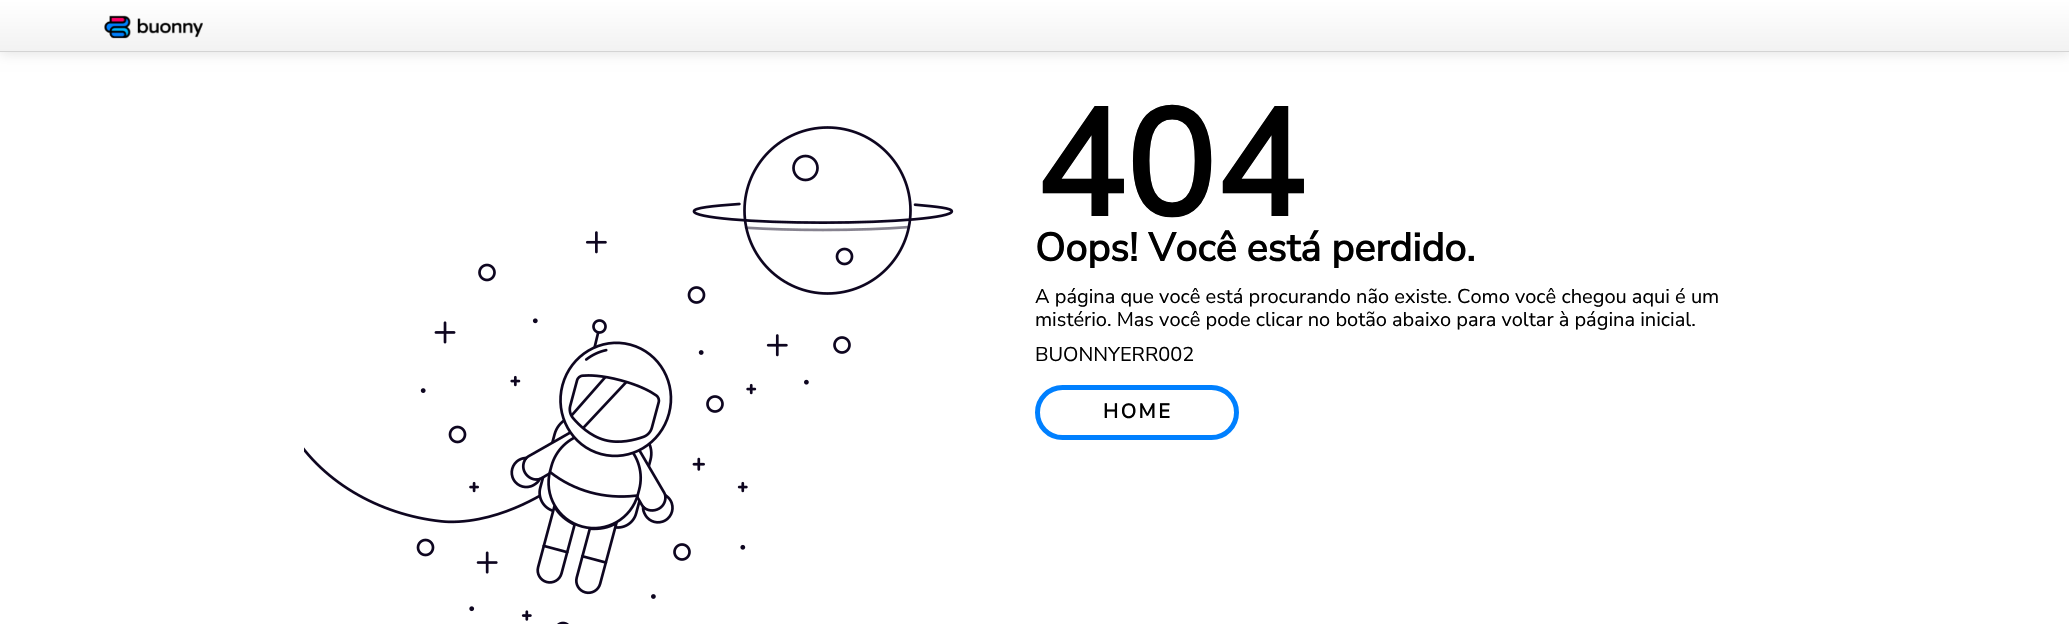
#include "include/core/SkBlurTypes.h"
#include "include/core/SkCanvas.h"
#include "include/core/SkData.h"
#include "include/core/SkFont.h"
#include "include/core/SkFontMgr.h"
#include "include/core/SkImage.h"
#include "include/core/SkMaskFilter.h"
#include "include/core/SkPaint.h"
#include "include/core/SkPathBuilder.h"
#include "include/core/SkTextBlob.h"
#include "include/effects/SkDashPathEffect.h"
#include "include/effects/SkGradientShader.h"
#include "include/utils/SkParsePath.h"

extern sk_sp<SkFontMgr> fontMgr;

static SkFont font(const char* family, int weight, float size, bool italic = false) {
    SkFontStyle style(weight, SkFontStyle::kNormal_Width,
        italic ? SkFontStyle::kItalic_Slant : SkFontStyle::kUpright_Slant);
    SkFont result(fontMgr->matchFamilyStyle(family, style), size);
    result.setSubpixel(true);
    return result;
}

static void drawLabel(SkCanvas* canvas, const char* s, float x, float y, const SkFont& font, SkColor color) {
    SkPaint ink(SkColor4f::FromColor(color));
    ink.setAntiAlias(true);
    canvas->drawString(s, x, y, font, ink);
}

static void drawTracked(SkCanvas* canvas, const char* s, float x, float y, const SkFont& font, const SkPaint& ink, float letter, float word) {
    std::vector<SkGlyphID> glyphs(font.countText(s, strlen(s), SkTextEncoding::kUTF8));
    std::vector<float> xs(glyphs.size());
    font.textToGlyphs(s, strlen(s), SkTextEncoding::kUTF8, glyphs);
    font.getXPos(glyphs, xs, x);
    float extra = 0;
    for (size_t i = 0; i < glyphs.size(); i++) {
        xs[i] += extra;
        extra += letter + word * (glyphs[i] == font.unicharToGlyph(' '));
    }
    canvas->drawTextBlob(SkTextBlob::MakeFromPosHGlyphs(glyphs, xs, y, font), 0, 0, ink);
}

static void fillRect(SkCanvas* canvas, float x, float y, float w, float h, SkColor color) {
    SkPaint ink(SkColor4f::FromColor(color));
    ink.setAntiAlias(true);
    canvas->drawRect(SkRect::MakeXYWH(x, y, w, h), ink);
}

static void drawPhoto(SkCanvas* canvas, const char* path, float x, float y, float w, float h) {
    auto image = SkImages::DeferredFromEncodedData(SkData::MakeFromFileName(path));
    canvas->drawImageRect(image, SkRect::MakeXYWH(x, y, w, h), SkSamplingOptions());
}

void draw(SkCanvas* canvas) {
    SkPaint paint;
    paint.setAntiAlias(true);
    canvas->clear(0xFFFFFFFF);
    paint.setColor(0x1A000000);
    paint.setMaskFilter(SkMaskFilter::MakeBlur(kNormal_SkBlurStyle, 6));
    canvas->drawRect(SkRect::MakeXYWH(0, 1, 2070, 53), paint);
    paint.setMaskFilter(nullptr);
    {
        const SkColor colors[] = {0xFFFFFFFF, 0xFFF2F2F2};
        const float stops[] = {0, 1};
        const SkPoint ends[] = {{1035, 0}, {1035, 51}};
        paint.setShader(SkGradientShader::MakeLinear(ends, colors, stops, 2, SkTileMode::kClamp));
        paint.setAlpha(255);
    }
    canvas->drawRect(SkRect::MakeXYWH(0, 0, 2069, 51), paint);
    fillRect(canvas, 0, 51, 2069, 1, 0xFFD4D4D4);
    drawPhoto(canvas, "assets/img1.png", 104, 15, 99, 24);
    drawPhoto(canvas, "assets/img2.png", 304, 126, 650, 498);
    SkFont font1 = font("Nunito Sans", 700, 150);
    drawLabel(canvas, "404", 1035, 216, font1, 0xFF000000);
    SkFont font2 = font("Nunito Sans", 700, 39.4f);
    drawLabel(canvas, "Oops! Você está perdido.", 1035, 261, font2, 0xFF000000);
    SkFont font3 = font("Nunito Sans", 200, 20);
    drawLabel(canvas, "A página que você está procurando não existe. Como você chegou aqui é um", 1035, 303, font3, 0xFF000000);
    drawLabel(canvas, "mistério. Mas você pode clicar no botão abaixo para voltar à página inicial.", 1035, 326, font3, 0xFF000000);
    drawLabel(canvas, "BUONNYERR002", 1035, 361, font3, 0xFF000000);
    paint.setStroke(true);
    paint.setStrokeWidth(5);
    paint.setShader(nullptr);
    paint.setColor(0xFF0080FF);
    canvas->drawRoundRect(SkRect::MakeXYWH(1037.5f, 387.5f, 199, 50), 25, 25, paint);
    SkFont font4 = font("Nunito Sans", 700, 20);
    paint.setStroke(false);
    paint.setColor(0xFF000000);
    drawTracked(canvas, "HOME", 1103, 418, font4, paint, 2.5f, 0);
}
